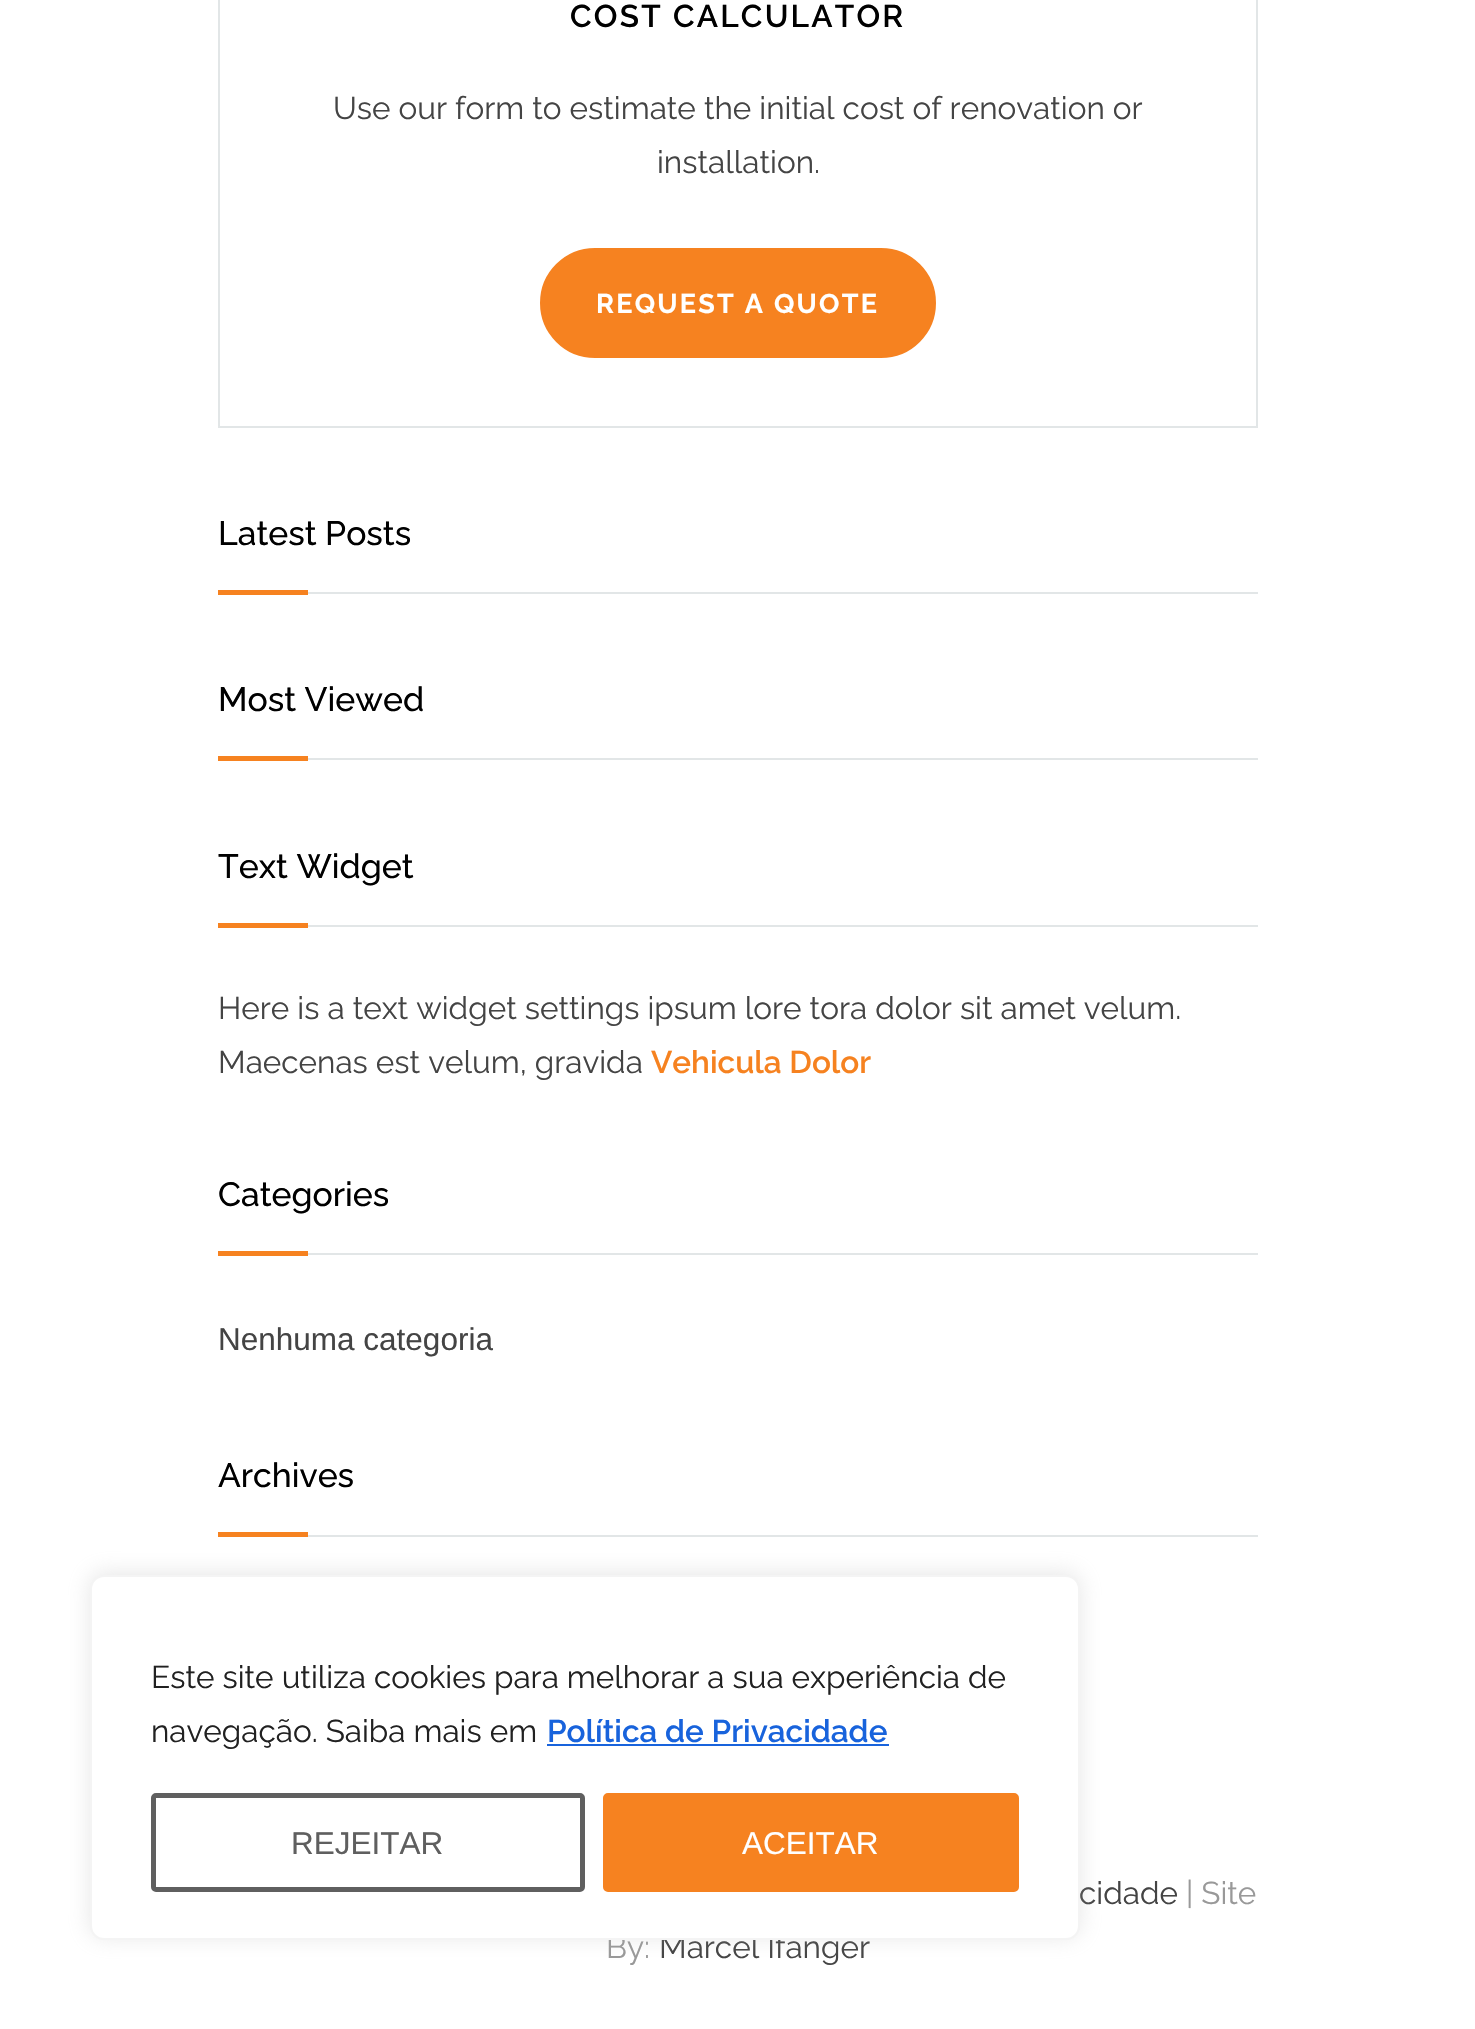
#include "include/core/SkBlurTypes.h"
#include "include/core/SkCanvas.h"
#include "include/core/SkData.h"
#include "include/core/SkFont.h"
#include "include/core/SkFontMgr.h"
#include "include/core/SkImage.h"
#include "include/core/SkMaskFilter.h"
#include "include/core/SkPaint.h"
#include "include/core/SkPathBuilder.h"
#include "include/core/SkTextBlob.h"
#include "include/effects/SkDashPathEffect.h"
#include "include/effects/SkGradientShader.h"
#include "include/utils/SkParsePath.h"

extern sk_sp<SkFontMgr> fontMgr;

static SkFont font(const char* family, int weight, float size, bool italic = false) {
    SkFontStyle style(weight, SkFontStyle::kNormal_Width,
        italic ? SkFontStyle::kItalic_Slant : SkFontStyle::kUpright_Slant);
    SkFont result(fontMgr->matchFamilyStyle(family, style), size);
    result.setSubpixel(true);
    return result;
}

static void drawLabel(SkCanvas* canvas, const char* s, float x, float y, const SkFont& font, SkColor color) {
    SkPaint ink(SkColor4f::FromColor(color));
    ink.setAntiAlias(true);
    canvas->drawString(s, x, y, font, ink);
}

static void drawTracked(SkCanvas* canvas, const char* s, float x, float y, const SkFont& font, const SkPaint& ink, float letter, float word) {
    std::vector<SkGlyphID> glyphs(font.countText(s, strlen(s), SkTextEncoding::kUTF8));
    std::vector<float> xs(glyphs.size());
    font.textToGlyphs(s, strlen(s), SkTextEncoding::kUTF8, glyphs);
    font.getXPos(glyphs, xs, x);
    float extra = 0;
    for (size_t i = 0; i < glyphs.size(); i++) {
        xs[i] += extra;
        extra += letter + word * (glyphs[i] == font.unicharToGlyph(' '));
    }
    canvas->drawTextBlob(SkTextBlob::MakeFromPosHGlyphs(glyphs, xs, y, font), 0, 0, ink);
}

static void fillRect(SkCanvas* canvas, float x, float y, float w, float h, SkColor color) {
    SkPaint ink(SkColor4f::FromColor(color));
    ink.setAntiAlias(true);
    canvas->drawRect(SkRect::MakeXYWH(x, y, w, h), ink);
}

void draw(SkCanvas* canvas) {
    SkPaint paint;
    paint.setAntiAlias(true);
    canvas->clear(0xFFFFFFFF);
    paint.setStroke(true);
    paint.setStrokeWidth(2);
    paint.setColor(0xFFE2E6E7);
    canvas->drawRect(SkRect::MakeXYWH(219, -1, 1038, 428), paint);
    SkFont font1 = font("Raleway", 600, 31.5f);
    paint.setStroke(false);
    paint.setColor(0xFF000000);
    drawTracked(canvas, "COST CALCULATOR", 570, 27, font1, paint, 2.25f, 0);
    SkFont font2 = font("Raleway", 400, 31.5f);
    drawLabel(canvas, "Use our form to estimate the initial cost of renovation or", 333, 119, font2, 0xFF444444);
    drawLabel(canvas, "installation.", 657, 173, font2, 0xFF444444);
    paint.setColor(0xFFF68220);
    canvas->drawRoundRect(SkRect::MakeXYWH(542.5f, 250.5f, 391, 105), 52.5f, 52.5f, paint);
    paint.setStroke(true);
    paint.setStrokeWidth(5);
    canvas->drawRoundRect(SkRect::MakeXYWH(542.5f, 250.5f, 391, 105), 52.5f, 52.5f, paint);
    SkFont font3 = font("Raleway", 700, 27);
    paint.setStroke(false);
    paint.setColor(0xFFFFFFFF);
    drawTracked(canvas, "REQUEST A QUOTE", 596, 313, font3, paint, 2.25f, 0);
    fillRect(canvas, 308, 592, 950, 2, 0xFFE2E6E7);
    SkFont font4 = font("Raleway", 500, 33.75f);
    drawLabel(canvas, "Latest Posts", 218, 545, font4, 0xFF000000);
    fillRect(canvas, 218, 590, 90, 5, 0xFFF68220);
    fillRect(canvas, 308, 758, 950, 2, 0xFFE2E6E7);
    drawLabel(canvas, "Most Viewed", 218, 711, font4, 0xFF000000);
    fillRect(canvas, 218, 756, 90, 5, 0xFFF68220);
    fillRect(canvas, 308, 925, 950, 2, 0xFFE2E6E7);
    drawLabel(canvas, "Text Widget", 218, 878, font4, 0xFF000000);
    fillRect(canvas, 218, 923, 90, 5, 0xFFF68220);
    drawLabel(canvas, "Here is a text widget settings ipsum lore tora dolor sit amet velum.", 218, 1019, font2, 0xFF444444);
    drawLabel(canvas, "Maecenas est velum, gravida", 218, 1073, font2, 0xFF444444);
    drawLabel(canvas, "Vehicula Dolor", 651, 1073, font1, 0xFFF68220);
    fillRect(canvas, 308, 1253, 950, 2, 0xFFE2E6E7);
    drawLabel(canvas, "Categories", 218, 1206, font4, 0xFF000000);
    fillRect(canvas, 218, 1251, 90, 5, 0xFFF68220);
    SkFont font5 = font("Liberation Sans", 400, 31.5f);
    drawLabel(canvas, "Nenhuma categoria", 218, 1350, font5, 0xFF444444);
    fillRect(canvas, 308, 1535, 950, 2, 0xFFE2E6E7);
    drawLabel(canvas, "Archives", 218, 1487, font4, 0xFF000000);
    fillRect(canvas, 218, 1532, 90, 5, 0xFFF68220);
    drawLabel(canvas, "cidade", 1079, 1904, font2, 0xFF444444);
    drawLabel(canvas, "| Site", 1186, 1904, font2, 0xFF999999);
    drawLabel(canvas, "By:", 606, 1958, font2, 0xFF999999);
    drawLabel(canvas, "Marcel Ifanger", 659, 1958, font2, 0xFF444444);
    paint.setColor(0x4DACABAB);
    paint.setMaskFilter(SkMaskFilter::MakeBlur(kNormal_SkBlurStyle, 11));
    canvas->drawRoundRect(SkRect::MakeXYWH(90, 1573, 990, 364), 14, 14, paint);
    paint.setMaskFilter(nullptr);
    paint.setColor(0xFFFFFFFF);
    canvas->drawRoundRect(SkRect::MakeXYWH(91, 1576, 988, 363), 13, 13, paint);
    paint.setStroke(true);
    paint.setStrokeWidth(2);
    paint.setColor(0xFFF4F4F4);
    canvas->drawRoundRect(SkRect::MakeXYWH(91, 1576, 988, 363), 13, 13, paint);
    drawLabel(canvas, "Este site utiliza cookies para melhorar a sua experiência de", 151, 1688, font2, 0xFF212121);
    drawLabel(canvas, "navegação. Saiba mais em", 151, 1742, font2, 0xFF212121);
    drawLabel(canvas, "Política de Privacidade", 547, 1742, font1, 0xFF1863DC);
    fillRect(canvas, 547, 1744, 342, 2, 0xFF1863DC);
    paint.setStrokeWidth(5);
    paint.setColor(0xFF5F5F5F);
    canvas->drawRoundRect(SkRect::MakeXYWH(153.5f, 1795.5f, 429, 94), 2.5f, 2.5f, paint);
    drawLabel(canvas, "REJEITAR", 291, 1854, font5, 0xFF5F5F5F);
    paint.setStroke(false);
    paint.setColor(0xFFF68220);
    canvas->drawRoundRect(SkRect::MakeXYWH(605.5f, 1795.5f, 411, 94), 2.5f, 2.5f, paint);
    paint.setStroke(true);
    canvas->drawRoundRect(SkRect::MakeXYWH(605.5f, 1795.5f, 411, 94), 2.5f, 2.5f, paint);
    drawLabel(canvas, "ACEITAR", 742, 1854, font5, 0xFFFFFFFF);
}
